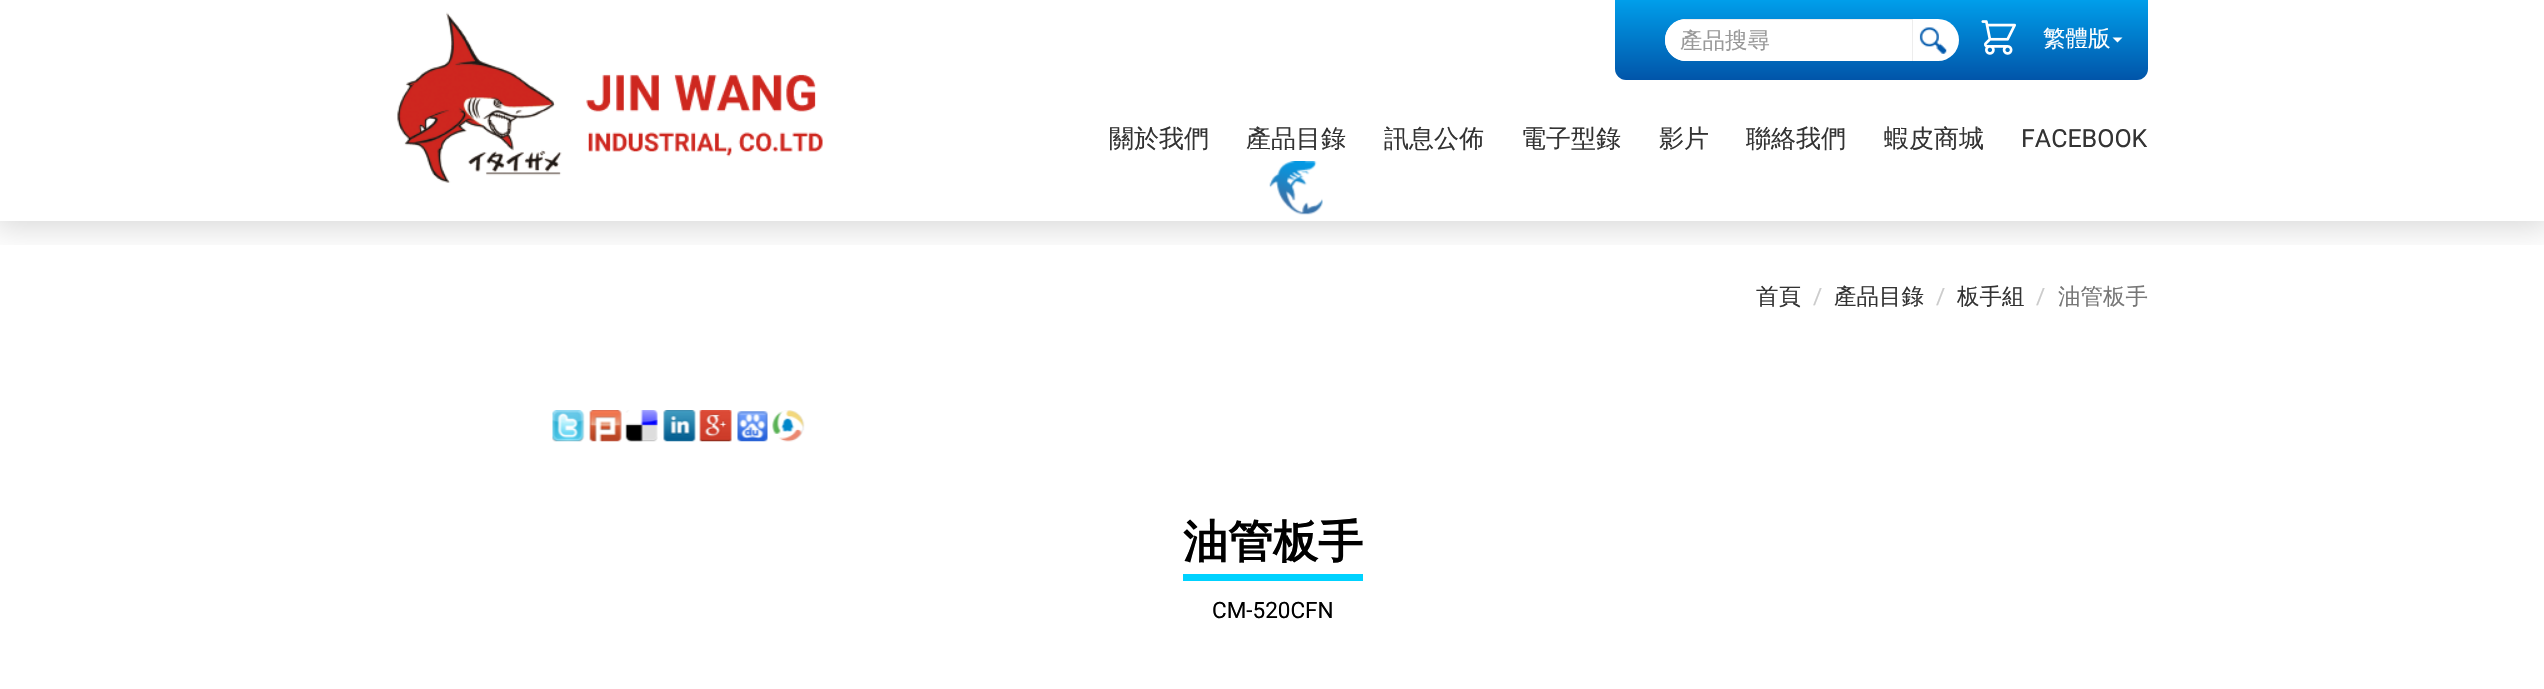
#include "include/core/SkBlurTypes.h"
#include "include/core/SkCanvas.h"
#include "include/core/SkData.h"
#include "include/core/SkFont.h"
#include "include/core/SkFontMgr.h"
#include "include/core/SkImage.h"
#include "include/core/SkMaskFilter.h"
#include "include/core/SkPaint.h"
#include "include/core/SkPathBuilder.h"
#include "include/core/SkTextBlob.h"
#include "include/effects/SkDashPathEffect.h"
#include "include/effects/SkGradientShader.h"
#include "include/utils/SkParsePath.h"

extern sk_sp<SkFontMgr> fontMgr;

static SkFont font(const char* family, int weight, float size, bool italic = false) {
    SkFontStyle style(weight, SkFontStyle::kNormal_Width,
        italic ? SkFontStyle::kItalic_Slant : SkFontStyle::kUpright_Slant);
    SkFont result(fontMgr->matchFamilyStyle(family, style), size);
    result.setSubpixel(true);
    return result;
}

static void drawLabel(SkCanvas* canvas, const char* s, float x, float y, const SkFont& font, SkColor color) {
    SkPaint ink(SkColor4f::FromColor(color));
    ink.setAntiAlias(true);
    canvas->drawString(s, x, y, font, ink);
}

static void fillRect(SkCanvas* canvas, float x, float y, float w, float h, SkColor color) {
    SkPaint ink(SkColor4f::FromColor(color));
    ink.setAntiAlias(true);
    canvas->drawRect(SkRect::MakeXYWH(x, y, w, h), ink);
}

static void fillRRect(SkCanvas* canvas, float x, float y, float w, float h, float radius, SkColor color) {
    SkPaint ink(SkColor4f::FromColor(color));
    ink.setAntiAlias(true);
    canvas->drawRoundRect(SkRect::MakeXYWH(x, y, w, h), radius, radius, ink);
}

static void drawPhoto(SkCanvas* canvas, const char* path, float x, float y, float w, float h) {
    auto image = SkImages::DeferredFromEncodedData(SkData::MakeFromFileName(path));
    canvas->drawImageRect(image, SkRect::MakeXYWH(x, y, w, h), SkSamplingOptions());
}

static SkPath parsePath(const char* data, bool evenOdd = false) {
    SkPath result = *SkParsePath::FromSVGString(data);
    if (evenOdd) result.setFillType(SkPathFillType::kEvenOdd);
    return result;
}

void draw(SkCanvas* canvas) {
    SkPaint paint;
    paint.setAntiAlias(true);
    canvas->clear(0xFFFFFFFF);
    canvas->save();
    canvas->clipRect(SkRect::MakeXYWH(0, 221, 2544, 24));
    paint.setColor(0x26000000);
    paint.setMaskFilter(SkMaskFilter::MakeBlur(kNormal_SkBlurStyle, 15));
    canvas->drawRect(SkRect::MakeXYWH(-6, -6, 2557, 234), paint);
    paint.setMaskFilter(nullptr);
    canvas->restore();
    drawPhoto(canvas, "assets/img1.png", 397, 12, 426, 171);
    {
        const SkColor colors[] = {0xFF009EEA, 0xFF0155A9};
        const float stops[] = {0, 1};
        const SkPoint ends[] = {{1881, 0}, {1881, 80}};
        paint.setShader(SkGradientShader::MakeLinear(ends, colors, stops, 2, SkTileMode::kClamp));
        paint.setAlpha(255);
    }
    canvas->drawPath(parsePath("M1615 0H2148V69C2148 75 2143 80 2137 80H1626C1620 80 1615 75 1615 69Z"), paint);
    fillRRect(canvas, 1665, 19, 294, 42, 21, 0xFFFFFFFF);
    paint.setShader(nullptr);
    paint.setColor(0xFFFFFFFF);
    canvas->drawPath(parsePath("M1686 19H1913V61H1686C1674.5 61 1665 51.5 1665 40C1665 28.5 1674.5 19 1686 19Z"), paint);
    paint.setColor(0x12000000);
    canvas->drawPath(parsePath("M1686 19L1680 20H1912V61H1913V19Z"), paint);
    SkFont font1 = font("WenQuanYi Zen Hei", 500, 22.5f);
    drawLabel(canvas, "產品搜尋", 1680, 48, font1, 0xFF999999);
    drawPhoto(canvas, "assets/img2.png", 1919, 27, 28, 27);
    drawPhoto(canvas, "assets/img3.png", 1981, 20, 35, 35);
    drawLabel(canvas, "繁體版", 2043, 46, font1, 0xFFFFFFFF);
    paint.setColor(0xFFFFFFFF);
    canvas->drawPath(parsePath("M2112.5 37.5H2122.5L2117.5 42.5Z"), paint);
    SkFont font2 = font("WenQuanYi Zen Hei", 500, 25);
    drawLabel(canvas, "關於我們", 1109, 147, font2, 0xFF333333);
    drawLabel(canvas, "產品目錄", 1246, 147, font2, 0xFF333333);
    drawPhoto(canvas, "assets/img4.png", 1269, 161, 54, 54);
    drawLabel(canvas, "訊息公佈", 1384, 147, font2, 0xFF333333);
    drawLabel(canvas, "電子型錄", 1521, 147, font2, 0xFF333333);
    drawLabel(canvas, "影片", 1659, 147, font2, 0xFF333333);
    drawLabel(canvas, "聯絡我們", 1746, 147, font2, 0xFF333333);
    drawLabel(canvas, "蝦皮商城", 1884, 147, font2, 0xFF333333);
    SkFont font3 = font("Roboto", 400, 25);
    drawLabel(canvas, "FACEBOOK", 2021, 147, font3, 0xFF333333);
    drawLabel(canvas, "首頁", 1756, 304, font1, 0xFF333333);
    SkFont font4 = font("Roboto", 400, 22.5f);
    drawLabel(canvas, "/", 1813, 304, font4, 0xFFCCCCCC);
    drawLabel(canvas, "產品目錄", 1834, 304, font1, 0xFF333333);
    drawLabel(canvas, "/", 1936, 304, font4, 0xFFCCCCCC);
    drawLabel(canvas, "板手組", 1957, 304, font1, 0xFF333333);
    drawLabel(canvas, "/", 2036, 304, font4, 0xFFCCCCCC);
    drawLabel(canvas, "油管板手", 2058, 304, font1, 0xFF777777);
    drawPhoto(canvas, "assets/img5.png", 552, 410, 33, 32);
    drawPhoto(canvas, "assets/img6.png", 589, 410, 33, 32);
    drawPhoto(canvas, "assets/img7.png", 625, 410, 33, 32);
    drawPhoto(canvas, "assets/img8.png", 663, 410, 33, 32);
    drawPhoto(canvas, "assets/img9.png", 699, 410, 33, 32);
    drawPhoto(canvas, "assets/img10.png", 737, 411, 31, 31);
    drawPhoto(canvas, "assets/img11.png", 772, 410, 33, 32);
    fillRect(canvas, 1183, 574, 180, 7, 0xFF00D2FF);
    SkFont font5 = font("WenQuanYi Zen Hei", 700, 45);
    drawLabel(canvas, "油管板手", 1183, 557, font5, 0xFF000000);
    drawLabel(canvas, "CM-520CFN", 1212, 618, font4, 0xFF000000);
}
